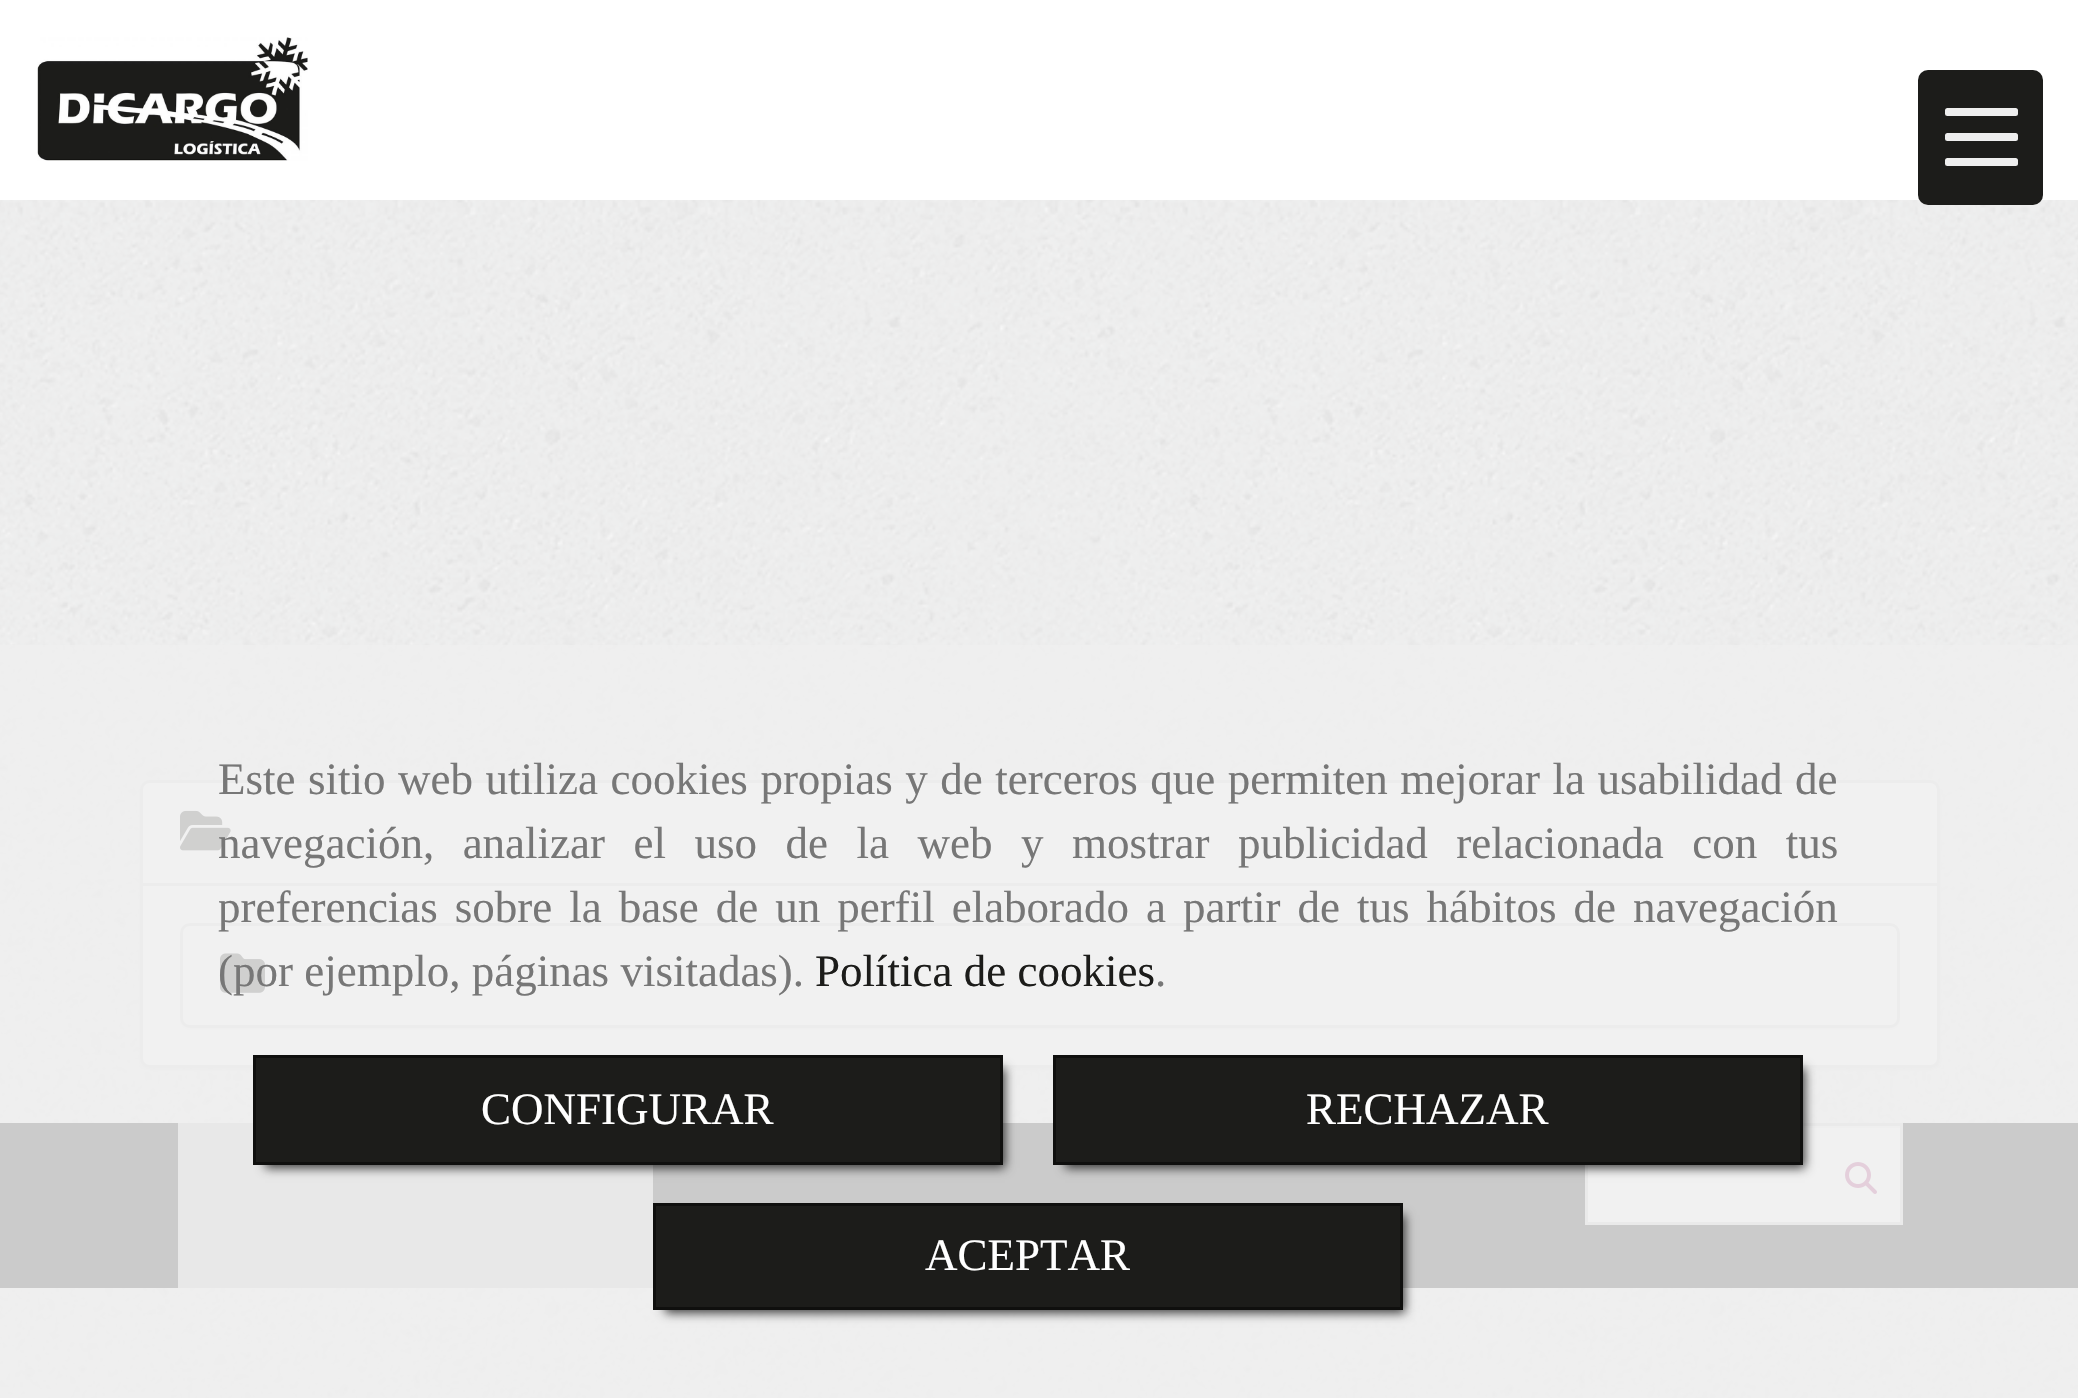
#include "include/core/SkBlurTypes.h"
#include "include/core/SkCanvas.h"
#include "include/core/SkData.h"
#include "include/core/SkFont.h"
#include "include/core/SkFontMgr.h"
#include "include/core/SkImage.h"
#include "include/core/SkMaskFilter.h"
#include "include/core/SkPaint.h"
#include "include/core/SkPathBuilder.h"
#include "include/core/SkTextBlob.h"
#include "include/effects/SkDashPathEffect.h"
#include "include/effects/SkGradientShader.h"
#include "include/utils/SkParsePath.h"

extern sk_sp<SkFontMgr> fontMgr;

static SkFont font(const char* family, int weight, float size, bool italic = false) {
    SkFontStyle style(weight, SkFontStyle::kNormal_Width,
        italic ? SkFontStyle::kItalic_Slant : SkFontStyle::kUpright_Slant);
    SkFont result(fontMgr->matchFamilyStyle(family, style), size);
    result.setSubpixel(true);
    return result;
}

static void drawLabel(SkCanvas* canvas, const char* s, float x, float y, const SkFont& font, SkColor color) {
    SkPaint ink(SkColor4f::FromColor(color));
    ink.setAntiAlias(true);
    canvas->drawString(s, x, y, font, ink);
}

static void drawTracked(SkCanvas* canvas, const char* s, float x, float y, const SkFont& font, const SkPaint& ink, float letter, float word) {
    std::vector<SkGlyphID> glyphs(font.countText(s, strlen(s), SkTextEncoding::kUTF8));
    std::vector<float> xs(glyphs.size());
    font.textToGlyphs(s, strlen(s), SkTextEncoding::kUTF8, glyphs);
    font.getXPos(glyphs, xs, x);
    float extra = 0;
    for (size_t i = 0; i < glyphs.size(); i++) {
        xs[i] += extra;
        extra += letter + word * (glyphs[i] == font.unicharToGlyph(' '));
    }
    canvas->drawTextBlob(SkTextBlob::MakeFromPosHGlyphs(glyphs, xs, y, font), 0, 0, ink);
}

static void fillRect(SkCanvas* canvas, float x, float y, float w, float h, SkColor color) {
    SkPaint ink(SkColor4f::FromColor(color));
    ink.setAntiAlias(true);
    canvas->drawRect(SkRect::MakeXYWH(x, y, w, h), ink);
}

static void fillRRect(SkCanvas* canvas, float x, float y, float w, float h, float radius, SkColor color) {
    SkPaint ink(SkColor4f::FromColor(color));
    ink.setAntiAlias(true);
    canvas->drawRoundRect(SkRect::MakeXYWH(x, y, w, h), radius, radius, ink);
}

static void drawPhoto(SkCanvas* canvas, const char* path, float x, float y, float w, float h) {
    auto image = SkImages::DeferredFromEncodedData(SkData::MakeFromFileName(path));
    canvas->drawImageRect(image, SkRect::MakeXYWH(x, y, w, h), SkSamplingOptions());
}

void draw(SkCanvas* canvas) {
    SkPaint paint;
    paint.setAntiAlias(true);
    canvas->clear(0xFFFFFFFF);
    drawPhoto(canvas, "assets/img1.png", 0, 200, 2078, 1198);
    drawPhoto(canvas, "assets/img2.png", 37, 37, 271, 124);
    fillRRect(canvas, 1918, 70, 125, 135, 10, 0xFF1C1C1A);
    fillRRect(canvas, 1945, 133, 73, 8, 2.5f, 0xFFEEEEEE);
    fillRRect(canvas, 1945, 108, 73, 8, 2.5f, 0xFFEEEEEE);
    fillRRect(canvas, 1945, 158, 73, 8, 2.5f, 0xFFEEEEEE);
    paint.setColor(0x0D000000);
    paint.setMaskFilter(SkMaskFilter::MakeBlur(kNormal_SkBlurStyle, 1));
    canvas->drawRoundRect(SkRect::MakeXYWH(140, 783, 1800, 287), 10, 10, paint);
    paint.setMaskFilter(nullptr);
    paint.setColor(0xFFFFFFFF);
    canvas->drawRoundRect(SkRect::MakeXYWH(141.5f, 781.5f, 1797, 285), 8.5f, 8.5f, paint);
    paint.setStroke(true);
    paint.setStrokeWidth(3);
    paint.setColor(0xFFDDDDDD);
    canvas->drawRoundRect(SkRect::MakeXYWH(141.5f, 781.5f, 1797, 285), 8.5f, 8.5f, paint);
    drawPhoto(canvas, "assets/img3.png", 180, 810, 51, 41);
    fillRect(canvas, 143, 883, 1795, 3, 0xFFDDDDDD);
    paint.setStroke(false);
    paint.setColor(0x0D000000);
    paint.setMaskFilter(SkMaskFilter::MakeBlur(kNormal_SkBlurStyle, 1));
    canvas->drawRoundRect(SkRect::MakeXYWH(180, 925, 1720, 105), 10, 10, paint);
    paint.setMaskFilter(nullptr);
    paint.setColor(0xFFFFFFFF);
    canvas->drawRoundRect(SkRect::MakeXYWH(181.5f, 924.5f, 1717, 102), 8.5f, 8.5f, paint);
    paint.setStroke(true);
    paint.setColor(0xFFDDDDDD);
    canvas->drawRoundRect(SkRect::MakeXYWH(181.5f, 924.5f, 1717, 102), 8.5f, 8.5f, paint);
    drawPhoto(canvas, "assets/img4.png", 220, 953, 45, 40);
    fillRect(canvas, 0, 1123, 2078, 165, 0xFF000000);
    fillRect(canvas, 178, 1123, 475, 165, 0xFFBDBDBD);
    fillRect(canvas, 1588, 1128, 312, 94, 0xFFFFFFFF);
    fillRect(canvas, 1803, 1126, 97, 2, 0xFFECECEC);
    paint.setColor(0xFFCCCCCC);
    canvas->drawRect(SkRect::MakeXYWH(1586.5f, 1124.5f, 315, 99), paint);
    drawPhoto(canvas, "assets/img5.png", 1845, 1162, 32, 32);
    fillRect(canvas, 0, 645, 2078, 753, 0xD9EEEEEE);
    SkFont font1 = font("Liberation Serif", 400, 45);
    paint.setStroke(false);
    paint.setColor(0xFF777777);
    drawTracked(canvas, "Este sitio web utiliza cookies propias y de terceros que permiten mejorar la usabilidad de", 218, 794, font1, paint, 0, 1.25f);
    drawTracked(canvas, "navegación, analizar el uso de la web y mostrar publicidad relacionada con tus", 218, 858, font1, paint, 0, 17.25f);
    drawTracked(canvas, "preferencias sobre la base de un perfil elaborado a partir de tus hábitos de navegación", 218, 922, font1, paint, 0, 5.75f);
    drawLabel(canvas, "(por ejemplo, páginas visitadas).", 218, 986, font1, 0xFF777777);
    drawLabel(canvas, "Política de cookies", 815, 986, font1, 0xFF1C1C1A);
    drawLabel(canvas, ".", 1155, 986, font1, 0xFF777777);
    paint.setColor(0xBF000000);
    paint.setMaskFilter(SkMaskFilter::MakeBlur(kNormal_SkBlurStyle, 5));
    canvas->drawRect(SkRect::MakeXYWH(265, 1068, 740, 100), paint);
    paint.setMaskFilter(nullptr);
    paint.setColor(0xFF1C1C1A);
    canvas->drawRect(SkRect::MakeXYWH(254.5f, 1056.5f, 747, 107), paint);
    paint.setStroke(true);
    paint.setColor(0xFF0F0F0E);
    canvas->drawRect(SkRect::MakeXYWH(254.5f, 1056.5f, 747, 107), paint);
    drawLabel(canvas, "CONFIGURAR", 481, 1124, font1, 0xFFFFFFFF);
    paint.setStroke(false);
    paint.setColor(0xBF000000);
    paint.setMaskFilter(SkMaskFilter::MakeBlur(kNormal_SkBlurStyle, 5));
    canvas->drawRect(SkRect::MakeXYWH(1065, 1068, 740, 100), paint);
    paint.setMaskFilter(nullptr);
    paint.setColor(0xFF1C1C1A);
    canvas->drawRect(SkRect::MakeXYWH(1054.5f, 1056.5f, 747, 107), paint);
    paint.setStroke(true);
    paint.setColor(0xFF0F0F0E);
    canvas->drawRect(SkRect::MakeXYWH(1054.5f, 1056.5f, 747, 107), paint);
    drawLabel(canvas, "RECHAZAR", 1306, 1124, font1, 0xFFFFFFFF);
    paint.setStroke(false);
    paint.setColor(0xBF000000);
    paint.setMaskFilter(SkMaskFilter::MakeBlur(kNormal_SkBlurStyle, 5));
    canvas->drawRect(SkRect::MakeXYWH(665, 1215, 740, 98), paint);
    paint.setMaskFilter(nullptr);
    paint.setColor(0xFF1C1C1A);
    canvas->drawRect(SkRect::MakeXYWH(654.5f, 1204.5f, 747, 104), paint);
    paint.setStroke(true);
    paint.setColor(0xFF0F0F0E);
    canvas->drawRect(SkRect::MakeXYWH(654.5f, 1204.5f, 747, 104), paint);
    drawLabel(canvas, "ACEPTAR", 925, 1270, font1, 0xFFFFFFFF);
}
